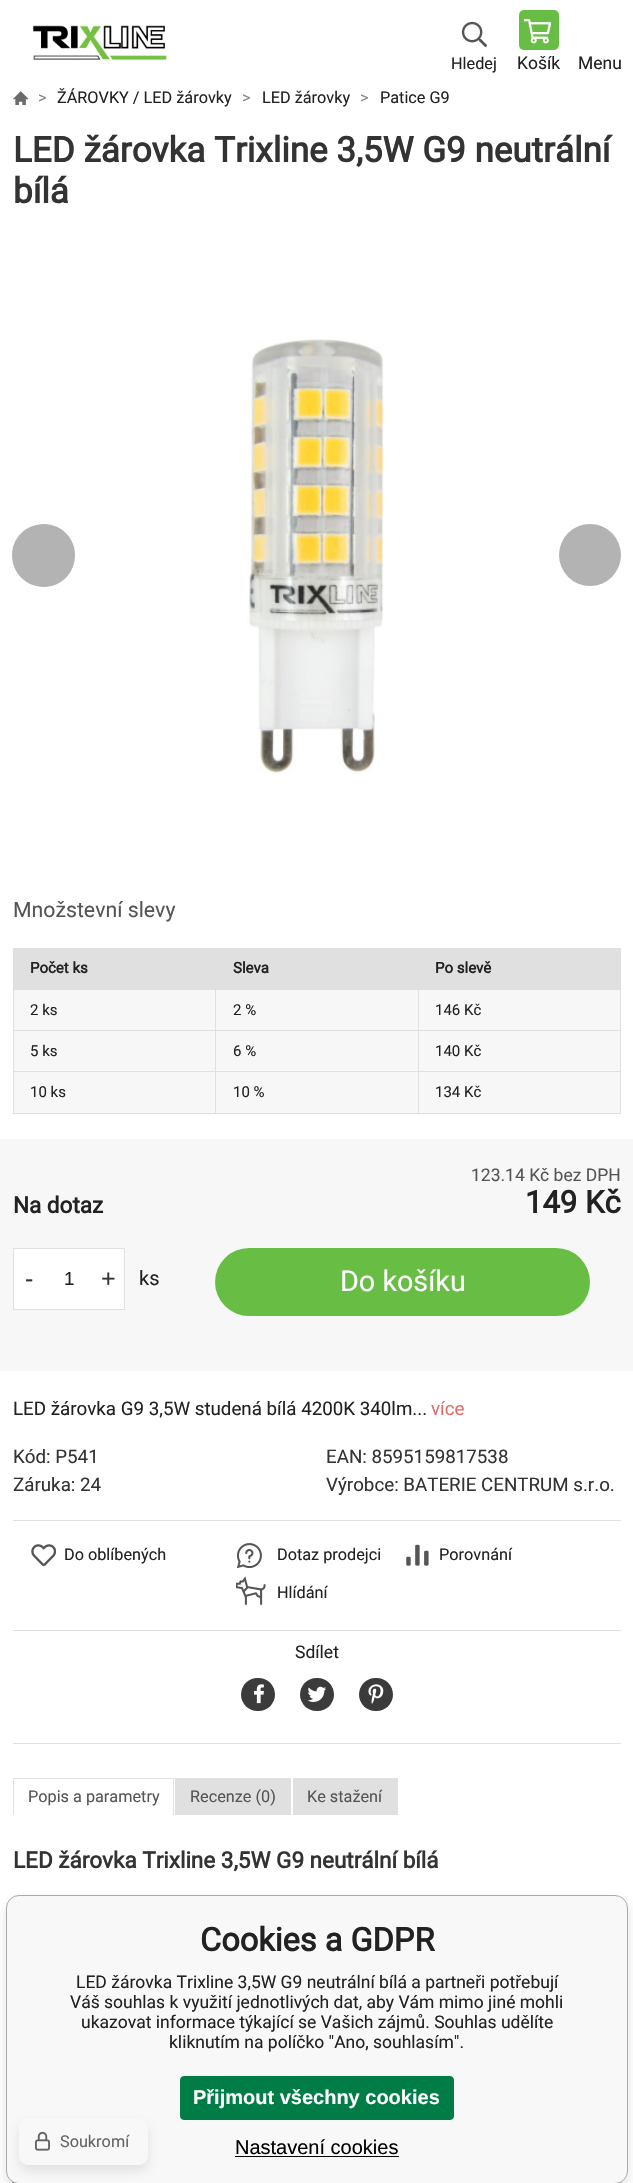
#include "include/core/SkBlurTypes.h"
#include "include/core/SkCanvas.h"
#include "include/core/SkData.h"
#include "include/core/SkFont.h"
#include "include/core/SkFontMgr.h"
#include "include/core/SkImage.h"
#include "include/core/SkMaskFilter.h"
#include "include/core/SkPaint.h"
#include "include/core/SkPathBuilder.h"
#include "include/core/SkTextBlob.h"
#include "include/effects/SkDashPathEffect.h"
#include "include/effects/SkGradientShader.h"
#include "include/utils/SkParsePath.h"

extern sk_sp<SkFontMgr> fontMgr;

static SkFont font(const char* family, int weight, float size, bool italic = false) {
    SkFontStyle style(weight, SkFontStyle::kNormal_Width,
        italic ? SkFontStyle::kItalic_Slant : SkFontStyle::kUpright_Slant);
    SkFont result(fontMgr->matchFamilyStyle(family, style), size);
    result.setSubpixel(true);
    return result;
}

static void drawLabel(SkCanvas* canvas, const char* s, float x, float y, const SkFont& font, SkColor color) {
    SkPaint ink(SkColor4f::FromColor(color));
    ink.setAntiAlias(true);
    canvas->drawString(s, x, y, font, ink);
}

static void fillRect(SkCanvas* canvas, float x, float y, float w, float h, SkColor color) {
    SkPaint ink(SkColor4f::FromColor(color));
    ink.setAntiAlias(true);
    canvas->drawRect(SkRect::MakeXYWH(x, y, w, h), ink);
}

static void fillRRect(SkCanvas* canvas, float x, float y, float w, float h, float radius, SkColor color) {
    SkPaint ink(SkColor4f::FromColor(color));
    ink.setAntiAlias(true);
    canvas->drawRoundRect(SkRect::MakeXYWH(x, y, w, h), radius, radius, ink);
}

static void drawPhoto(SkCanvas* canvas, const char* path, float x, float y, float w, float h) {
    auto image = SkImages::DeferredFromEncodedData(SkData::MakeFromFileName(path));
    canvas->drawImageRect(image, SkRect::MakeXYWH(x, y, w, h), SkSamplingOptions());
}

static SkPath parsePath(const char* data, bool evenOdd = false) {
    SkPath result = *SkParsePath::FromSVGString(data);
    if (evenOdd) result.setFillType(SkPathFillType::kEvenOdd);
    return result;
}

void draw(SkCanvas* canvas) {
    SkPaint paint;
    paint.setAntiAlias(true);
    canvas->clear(0xFFFFFFFF);
    drawPhoto(canvas, "assets/img1.png", 33, 25, 134, 35);
    drawPhoto(canvas, "assets/img2.png", 461, 21, 27, 27);
    SkFont font1 = font("Roboto", 400, 16.25f);
    drawLabel(canvas, "Hledej", 451, 69, font1, 0xFF222222);
    fillRRect(canvas, 519, 10, 40, 40, 5, 0xFF68BD45);
    drawPhoto(canvas, "assets/img3.png", 524, 19, 27, 25);
    SkFont font2 = font("Roboto", 400, 17.5f);
    drawLabel(canvas, "Košík", 517, 69, font2, 0xFF222222);
    drawLabel(canvas, "Menu", 578, 69, font2, 0xFF222222);
    drawPhoto(canvas, "assets/img4.png", 13, 91, 15, 14);
    drawLabel(canvas, ">", 38, 103, font1, 0xFF888888);
    drawLabel(canvas, "ŽÁROVKY / LED žárovky", 57, 103, font1, 0xFF222222);
    drawLabel(canvas, ">", 242, 103, font1, 0xFF888888);
    drawLabel(canvas, "LED žárovky", 262, 103, font1, 0xFF222222);
    drawLabel(canvas, ">", 360, 103, font1, 0xFF888888);
    drawLabel(canvas, "Patice G9", 380, 103, font1, 0xFF222222);
    SkFont font3 = font("Roboto", 700, 35);
    drawLabel(canvas, "LED žárovka Trixline 3,5W G9 neutrální", 13, 162, font3, 0xFF333333);
    drawLabel(canvas, "bílá", 13, 203, font3, 0xFF333333);
    paint.setColor(0xFFB3B3B3);
    canvas->drawPath(parsePath("M44 587C26 587 12 573 12 555C12 538 26 524 44 524C61 524 75 538 75 555C75 573 61 587 44 587Z"), paint);
    drawPhoto(canvas, "assets/img5.png", 247, 338, 138, 436);
    canvas->drawCircle(590, 555, 31, paint);
    SkFont font4 = font("Roboto", 400, 21.25f);
    drawLabel(canvas, "Množstevní slevy", 13, 917, font4, 0xFF555555);
    fillRect(canvas, 13, 948, 608, 1, 0xFFE0E0E0);
    fillRect(canvas, 620, 948, 1, 166, 0xFFE0E0E0);
    fillRect(canvas, 13, 1113, 608, 1, 0xFFE0E0E0);
    fillRect(canvas, 13, 948, 1, 166, 0xFFE0E0E0);
    fillRect(canvas, 14, 949, 606, 40, 0xFFE0E0E0);
    SkFont font5 = font("Roboto", 700, 15);
    drawLabel(canvas, "Počet ks", 30, 973, font5, 0xFF222222);
    drawLabel(canvas, "Sleva", 233, 973, font5, 0xFF222222);
    drawLabel(canvas, "Po slevě", 435, 973, font5, 0xFF222222);
    fillRect(canvas, 14, 990, 201, 40, 0xFFF7F7F7);
    fillRect(canvas, 418, 989, 203, 1, 0xFFE0E0E0);
    fillRect(canvas, 418, 1030, 203, 1, 0xFFE0E0E0);
    fillRect(canvas, 418, 1071, 203, 1, 0xFFE0E0E0);
    fillRect(canvas, 418, 1071, 1, 43, 0xFFE0E0E0);
    fillRect(canvas, 215, 1071, 204, 1, 0xFFE0E0E0);
    fillRect(canvas, 418, 1030, 1, 43, 0xFFE0E0E0);
    fillRect(canvas, 215, 1030, 204, 1, 0xFFE0E0E0);
    fillRect(canvas, 418, 989, 1, 42, 0xFFE0E0E0);
    fillRect(canvas, 215, 989, 204, 1, 0xFFE0E0E0);
    fillRect(canvas, 215, 1071, 1, 43, 0xFFE0E0E0);
    fillRect(canvas, 13, 1071, 203, 1, 0xFFE0E0E0);
    fillRect(canvas, 215, 1030, 1, 43, 0xFFE0E0E0);
    fillRect(canvas, 13, 1030, 203, 1, 0xFFE0E0E0);
    fillRect(canvas, 215, 989, 1, 42, 0xFFE0E0E0);
    fillRect(canvas, 13, 989, 203, 1, 0xFFE0E0E0);
    SkFont font6 = font("Roboto", 400, 15);
    drawLabel(canvas, "2 ks", 30, 1015, font6, 0xFF222222);
    fillRect(canvas, 216, 990, 202, 40, 0xFFF7F7F7);
    drawLabel(canvas, "2 %", 233, 1015, font6, 0xFF222222);
    fillRect(canvas, 419, 990, 201, 40, 0xFFF7F7F7);
    drawLabel(canvas, "146 Kč", 435, 1015, font6, 0xFF222222);
    fillRect(canvas, 14, 1031, 201, 40, 0xFFF7F7F7);
    drawLabel(canvas, "5 ks", 30, 1056, font6, 0xFF222222);
    fillRect(canvas, 216, 1031, 202, 40, 0xFFF7F7F7);
    drawLabel(canvas, "6 %", 233, 1056, font6, 0xFF222222);
    fillRect(canvas, 419, 1031, 201, 40, 0xFFF7F7F7);
    drawLabel(canvas, "140 Kč", 435, 1056, font6, 0xFF222222);
    fillRect(canvas, 14, 1072, 201, 41, 0xFFF7F7F7);
    drawLabel(canvas, "10 ks", 30, 1097, font6, 0xFF222222);
    fillRect(canvas, 216, 1072, 202, 41, 0xFFF7F7F7);
    drawLabel(canvas, "10 %", 233, 1097, font6, 0xFF222222);
    fillRect(canvas, 419, 1072, 201, 41, 0xFFF7F7F7);
    drawLabel(canvas, "134 Kč", 435, 1097, font6, 0xFF222222);
    fillRect(canvas, 0, 1139, 633, 232, 0xFFF7F7F7);
    drawLabel(canvas, "123.14 Kč bez DPH", 471, 1181, font2, 0xFF555555);
    SkFont font7 = font("Roboto", 700, 22.5f);
    drawLabel(canvas, "Na dotaz", 13, 1213, font7, 0xFF222222);
    SkFont font8 = font("Roboto", 700, 31);
    drawLabel(canvas, "149 Kč", 525, 1213, font8, 0xFF222222);
    paint.setColor(0xFFFFFFFF);
    canvas->drawRect(SkRect::MakeXYWH(13.5f, 1248.5f, 111, 61), paint);
    paint.setStroke(true);
    paint.setStrokeWidth(1);
    paint.setColor(0xFFE0E0E0);
    canvas->drawRect(SkRect::MakeXYWH(13.5f, 1248.5f, 111, 61), paint);
    SkFont font9 = font("Liberation Sans", 400, 25);
    drawLabel(canvas, "-", 25, 1287, font9, 0xFF333333);
    SkFont font10 = font("Liberation Sans", 400, 18.75f);
    drawLabel(canvas, "1", 64, 1285, font10, 0xFF222222);
    drawLabel(canvas, "+", 101, 1287, font9, 0xFF333333);
    SkFont font11 = font("Roboto", 400, 20);
    drawLabel(canvas, "ks", 139, 1285, font11, 0xFF222222);
    fillRRect(canvas, 215, 1248, 375, 68, 34, 0xFF68BD45);
    SkFont font12 = font("Roboto", 400, 28.75f);
    drawLabel(canvas, "Do košíku", 340, 1291, font12, 0xFFFFFFFF);
    SkFont font13 = font("Roboto", 400, 18.75f);
    drawLabel(canvas, "LED žárovka G9 3,5W studená bílá 4200K 340lm...", 13, 1415, font13, 0xFF222222);
    drawLabel(canvas, "více", 431, 1415, font13, 0xFFDC6F69);
    fillRect(canvas, 13, 1520, 608, 1, 0xFFE0E0E0);
    drawLabel(canvas, "Kód: P541", 13, 1463, font13, 0xFF333333);
    drawLabel(canvas, "EAN: 8595159817538", 326, 1463, font13, 0xFF333333);
    drawLabel(canvas, "Záruka: 24", 13, 1491, font13, 0xFF333333);
    drawLabel(canvas, "Výrobce: BATERIE CENTRUM s.r.o.", 326, 1491, font13, 0xFF333333);
    fillRect(canvas, 13, 1630, 608, 1, 0xFFE0E0E0);
    drawPhoto(canvas, "assets/img6.png", 31, 1544, 25, 23);
    drawLabel(canvas, "Do oblíbených", 64, 1560, font1, 0xFF222222);
    drawPhoto(canvas, "assets/img7.png", 236, 1543, 26, 26);
    drawLabel(canvas, "Dotaz prodejci", 277, 1560, font1, 0xFF222222);
    drawPhoto(canvas, "assets/img8.png", 406, 1544, 23, 22);
    drawLabel(canvas, "Porovnání", 439, 1560, font1, 0xFF222222);
    drawPhoto(canvas, "assets/img9.png", 236, 1576, 30, 29);
    drawLabel(canvas, "Hlídání", 277, 1598, font1, 0xFF222222);
    fillRect(canvas, 13, 1743, 608, 1, 0xFFE0E0E0);
    drawLabel(canvas, "Sdílet", 295, 1658, font2, 0xFF222222);
    fillRRect(canvas, 241, 1678, 34, 33, 16.5f, 0xFF3B3B3B);
    drawPhoto(canvas, "assets/img10.png", 254, 1684, 10, 20);
    fillRRect(canvas, 300, 1678, 34, 33, 16.5f, 0xFF3B3B3B);
    drawPhoto(canvas, "assets/img11.png", 308, 1686, 18, 16);
    fillRRect(canvas, 359, 1678, 34, 33, 16.5f, 0xFF3B3B3B);
    drawPhoto(canvas, "assets/img12.png", 368, 1684, 16, 20);
    fillRect(canvas, 13, 1778, 161, 1, 0xFFE0E0E0);
    fillRect(canvas, 173, 1778, 1, 37, 0xFFE0E0E0);
    fillRect(canvas, 13, 1778, 1, 37, 0xFFE0E0E0);
    drawLabel(canvas, "Popis a parametry", 28, 1802, font1, 0xFF555555);
    fillRect(canvas, 175, 1778, 116, 37, 0xFFE0E0E0);
    drawLabel(canvas, "Recenze (0)", 190, 1802, font1, 0xFF555555);
    fillRect(canvas, 293, 1778, 105, 37, 0xFFE0E0E0);
    drawLabel(canvas, "Ke stažení", 307, 1802, font1, 0xFF555555);
    drawLabel(canvas, "LED žárovka Trixline 3,5W G9 neutrální bílá", 13, 1868, font7, 0xFF333333);
    drawPhoto(canvas, "assets/img13.png", 12, 2182, 609, 1);
    paint.setStroke(false);
    paint.setColor(0x80C8C8C8);
    paint.setMaskFilter(SkMaskFilter::MakeBlur(kNormal_SkBlurStyle, 6));
    canvas->drawRoundRect(SkRect::MakeXYWH(6, 1901, 622, 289), 13, 13, paint);
    paint.setMaskFilter(nullptr);
    paint.setColor(0xFFF8F8F8);
    canvas->drawRoundRect(SkRect::MakeXYWH(6.5f, 1895.5f, 621, 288), 12.5f, 12.5f, paint);
    paint.setStroke(true);
    paint.setColor(0xFFAAAAAA);
    canvas->drawRoundRect(SkRect::MakeXYWH(6.5f, 1895.5f, 621, 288), 12.5f, 12.5f, paint);
    SkFont font14 = font("Roboto", 700, 32.5f);
    drawLabel(canvas, "Cookies a GDPR", 200, 1951, font14, 0xFF222222);
    drawLabel(canvas, "LED žárovka Trixline 3,5W G9 neutrální bílá a partneři potřebují", 76, 1988, font2, 0xFF222222);
    drawLabel(canvas, "Váš souhlas k využití jednotlivých dat, aby Vám mimo jiné mohli", 70, 2008, font2, 0xFF222222);
    drawLabel(canvas, "ukazovat informace týkající se Vašich zájmů. Souhlas udělíte", 81, 2028, font2, 0xFF222222);
    drawLabel(canvas, "kliknutím na políčko \"Ano, souhlasím\".", 169, 2048, font2, 0xFF222222);
    paint.setStroke(false);
    paint.setColor(0xFF007C47);
    canvas->drawRoundRect(SkRect::MakeXYWH(180.5f, 2076.5f, 273, 43), 3.5f, 3.5f, paint);
    paint.setStroke(true);
    canvas->drawRoundRect(SkRect::MakeXYWH(180.5f, 2076.5f, 273, 43), 3.5f, 3.5f, paint);
    SkFont font15 = font("Liberation Sans", 700, 20);
    drawLabel(canvas, "Přijmout všechny cookies", 193, 2104, font15, 0xFFFFFFFF);
    SkFont font16 = font("Liberation Sans", 400, 20);
    drawLabel(canvas, "Nastavení cookies", 235, 2154, font16, 0xFF000000);
    fillRect(canvas, 235, 2156, 164, 1, 0xFF000000);
    paint.setStroke(false);
    paint.setColor(0x80C8C8C8);
    paint.setMaskFilter(SkMaskFilter::MakeBlur(kNormal_SkBlurStyle, 6));
    canvas->drawRoundRect(SkRect::MakeXYWH(19, 2124, 129, 47), 9, 9, paint);
    paint.setMaskFilter(nullptr);
    fillRRect(canvas, 19, 2118, 129, 47, 9, 0xFFF8F8F8);
    drawPhoto(canvas, "assets/img14.png", 35, 2131, 15, 20);
    drawLabel(canvas, "Soukromí", 60, 2147, font1, 0xFF646464);
}
